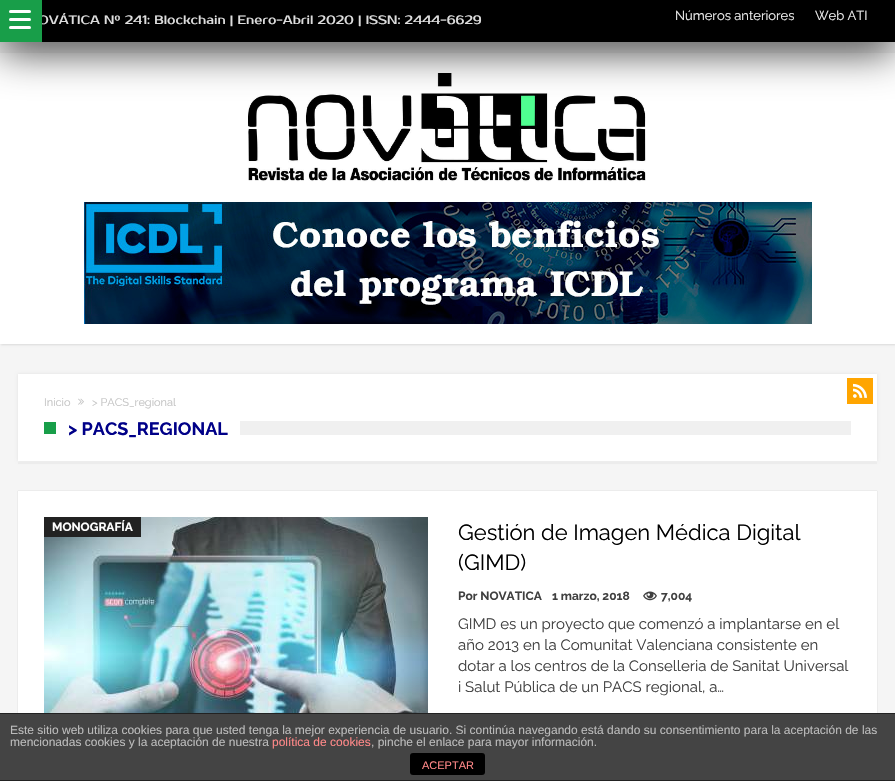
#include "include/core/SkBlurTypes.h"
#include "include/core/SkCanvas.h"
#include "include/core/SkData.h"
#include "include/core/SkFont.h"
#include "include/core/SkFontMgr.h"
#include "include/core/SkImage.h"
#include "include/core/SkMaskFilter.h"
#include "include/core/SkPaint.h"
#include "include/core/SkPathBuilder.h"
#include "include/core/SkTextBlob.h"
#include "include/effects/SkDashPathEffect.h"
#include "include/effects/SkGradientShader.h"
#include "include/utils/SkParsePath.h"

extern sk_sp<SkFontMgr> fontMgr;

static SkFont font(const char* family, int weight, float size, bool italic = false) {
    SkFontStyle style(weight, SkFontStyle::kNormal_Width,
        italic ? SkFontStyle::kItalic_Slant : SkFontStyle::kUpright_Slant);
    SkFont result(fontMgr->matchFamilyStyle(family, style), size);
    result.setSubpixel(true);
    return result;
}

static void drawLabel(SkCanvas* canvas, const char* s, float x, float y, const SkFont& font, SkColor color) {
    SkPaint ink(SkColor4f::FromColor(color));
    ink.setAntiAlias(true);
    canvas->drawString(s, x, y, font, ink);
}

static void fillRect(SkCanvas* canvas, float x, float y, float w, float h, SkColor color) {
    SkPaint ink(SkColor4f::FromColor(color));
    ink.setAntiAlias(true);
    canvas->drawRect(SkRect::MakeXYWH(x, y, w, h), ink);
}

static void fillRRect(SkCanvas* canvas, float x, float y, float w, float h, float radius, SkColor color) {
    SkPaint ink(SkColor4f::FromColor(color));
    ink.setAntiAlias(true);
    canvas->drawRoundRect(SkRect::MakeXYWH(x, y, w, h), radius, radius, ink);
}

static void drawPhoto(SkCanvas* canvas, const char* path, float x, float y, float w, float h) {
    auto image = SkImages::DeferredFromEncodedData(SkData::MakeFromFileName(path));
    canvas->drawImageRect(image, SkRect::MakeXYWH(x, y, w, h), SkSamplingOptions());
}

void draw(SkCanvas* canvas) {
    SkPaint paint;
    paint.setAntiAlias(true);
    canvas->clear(0xFFF5F5F5);
    paint.setColor(0x1C000000);
    paint.setMaskFilter(SkMaskFilter::MakeBlur(kNormal_SkBlurStyle, 1));
    canvas->drawRect(SkRect::MakeXYWH(1, 54, 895, 291), paint);
    paint.setMaskFilter(nullptr);
    fillRect(canvas, 0, 53, 895, 291, 0xFFFFFFFF);
    drawPhoto(canvas, "assets/img1.png", 248, 73, 398, 109);
    paint.setColor(0xBF000000);
    paint.setMaskFilter(SkMaskFilter::MakeBlur(kNormal_SkBlurStyle, 20));
    canvas->drawRect(SkRect::MakeXYWH(0, 10, 895, 42), paint);
    paint.setMaskFilter(nullptr);
    fillRect(canvas, 42, 0, 853, 42, 0xFF000000);
    SkFont font1 = font("Prosto One", 400, 12);
    drawLabel(canvas, "OVÁTICA Nº 241: Blockchain | Enero-Abril 2020 | ISSN: 2444-6629", 38, 24, font1, 0xFFDDDDDD);
    fillRect(canvas, 0, 0, 42, 42, 0xFF189E49);
    fillRRect(canvas, 9, 10, 22, 3, 1.5f, 0xFFFFFFFF);
    fillRRect(canvas, 9, 18, 22, 3, 1.5f, 0xFFFFFFFF);
    fillRRect(canvas, 9, 26, 22, 3, 1.5f, 0xFFFFFFFF);
    SkFont font2 = font("Raleway", 400, 13);
    drawLabel(canvas, "Números anteriores", 675, 20, font2, 0xFFF0F0F0);
    drawLabel(canvas, "Web ATI", 815, 20, font2, 0xFFF0F0F0);
    drawPhoto(canvas, "assets/img2.png", 84, 202, 728, 122);
    paint.setColor(0x14000000);
    paint.setMaskFilter(SkMaskFilter::MakeBlur(kNormal_SkBlurStyle, 1.5f));
    canvas->drawRect(SkRect::MakeXYWH(18, 374, 859, 87), paint);
    paint.setMaskFilter(nullptr);
    fillRect(canvas, 18, 374, 859, 87, 0xFFFFFFFF);
    fillRect(canvas, 847, 378, 26, 26, 0xFFFFA500);
    drawPhoto(canvas, "assets/img3.png", 853, 383, 14, 15);
    SkFont font3 = font("Raleway", 400, 11);
    drawLabel(canvas, "Inicio", 44, 406, font3, 0xFFC3C3C3);
    drawPhoto(canvas, "assets/img4.png", 78, 398, 6, 7);
    drawLabel(canvas, "> PACS_regional", 92, 406, font3, 0xFFC3C3C3);
    fillRect(canvas, 240, 421, 611, 14, 0xFFF0F0F0);
    fillRect(canvas, 44, 422, 12, 12, 0xFF189E49);
    SkFont font4 = font("Raleway", 700, 18);
    drawLabel(canvas, "> PACS_REGIONAL", 68, 435, font4, 0xFF000088);
    fillRect(canvas, 18, 462, 859, 2, 0xFFECECEC);
    paint.setColor(0x33000000);
    paint.setMaskFilter(SkMaskFilter::MakeBlur(kNormal_SkBlurStyle, 0.5f));
    canvas->drawRect(SkRect::MakeXYWH(18, 491, 859, 262), paint);
    paint.setMaskFilter(nullptr);
    fillRect(canvas, 18, 491, 859, 222, 0xFFFFFFFF);
    drawPhoto(canvas, "assets/img5.png", 44, 517, 384, 196);
    fillRect(canvas, 44, 517, 97, 20, 0xFF222222);
    SkFont font5 = font("Raleway", 700, 12);
    drawLabel(canvas, "MONOGRAFÍA", 52, 531, font5, 0xFFFFFFFF);
    SkFont font6 = font("Raleway", 400, 22);
    drawLabel(canvas, "Gestión de Imagen Médica Digital", 458, 540, font6, 0xFF000000);
    drawLabel(canvas, "(GIMD)", 458, 570, font6, 0xFF000000);
    drawLabel(canvas, "Por NOVATICA", 458, 600, font5, 0xFF404040);
    drawLabel(canvas, "1 marzo, 2018", 552, 600, font5, 0xFF404040);
    drawPhoto(canvas, "assets/img6.png", 643, 591, 14, 10);
    drawLabel(canvas, "7,004", 661, 600, font5, 0xFF404040);
    SkFont font7 = font("Raleway", 400, 15);
    drawLabel(canvas, "GIMD es un proyecto que comenzó a implantarse en el", 458, 629, font7, 0xFF404040);
    drawLabel(canvas, "año 2013 en la Comunitat Valenciana consistente en", 458, 650, font7, 0xFF404040);
    drawLabel(canvas, "dotar a los centros de la Conselleria de Sanitat Universal", 458, 671, font7, 0xFF404040);
    drawLabel(canvas, "i Salut Pública de un PACS regional, a…", 458, 692, font7, 0xFF404040);
    fillRect(canvas, 0, 714, 895, 66, 0xFF444444);
    fillRect(canvas, 0, 713, 895, 1, 0xFF222222);
    fillRect(canvas, 0, 780, 895, 1, 0xFF222222);
    SkFont font8 = font("Liberation Sans", 400, 12);
    drawLabel(canvas, "Este sitio web utiliza cookies para que usted tenga la mejor experiencia de usuario. Si continúa navegando está dando su consentimiento para la aceptación de las", 10, 734, font8, 0xFFBBBBBB);
    drawLabel(canvas, "mencionadas cookies y la aceptación de nuestra", 10, 746, font8, 0xFFBBBBBB);
    drawLabel(canvas, "política de cookies", 272, 746, font8, 0xFFFF8888);
    drawLabel(canvas, ", pinche el enlace para mayor información.", 371, 746, font8, 0xFFBBBBBB);
    fillRRect(canvas, 410, 753, 75, 22, 3, 0xFF000000);
    SkFont font9 = font("Liberation Sans", 400, 11);
    drawLabel(canvas, "ACEPTAR", 422, 769, font9, 0xFFFF8888);
}
